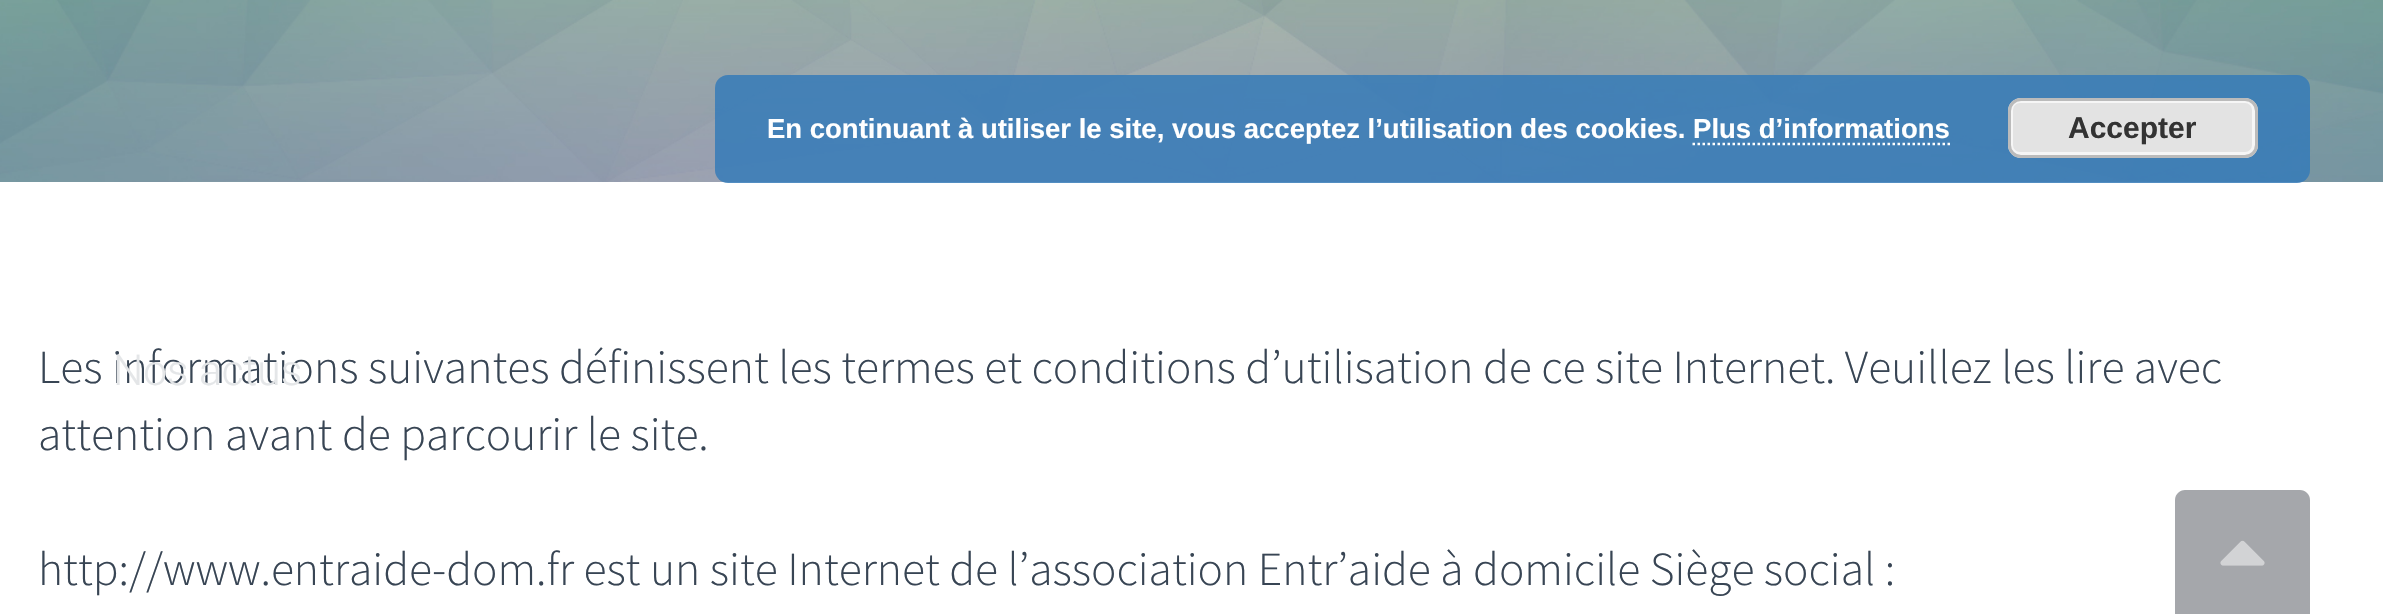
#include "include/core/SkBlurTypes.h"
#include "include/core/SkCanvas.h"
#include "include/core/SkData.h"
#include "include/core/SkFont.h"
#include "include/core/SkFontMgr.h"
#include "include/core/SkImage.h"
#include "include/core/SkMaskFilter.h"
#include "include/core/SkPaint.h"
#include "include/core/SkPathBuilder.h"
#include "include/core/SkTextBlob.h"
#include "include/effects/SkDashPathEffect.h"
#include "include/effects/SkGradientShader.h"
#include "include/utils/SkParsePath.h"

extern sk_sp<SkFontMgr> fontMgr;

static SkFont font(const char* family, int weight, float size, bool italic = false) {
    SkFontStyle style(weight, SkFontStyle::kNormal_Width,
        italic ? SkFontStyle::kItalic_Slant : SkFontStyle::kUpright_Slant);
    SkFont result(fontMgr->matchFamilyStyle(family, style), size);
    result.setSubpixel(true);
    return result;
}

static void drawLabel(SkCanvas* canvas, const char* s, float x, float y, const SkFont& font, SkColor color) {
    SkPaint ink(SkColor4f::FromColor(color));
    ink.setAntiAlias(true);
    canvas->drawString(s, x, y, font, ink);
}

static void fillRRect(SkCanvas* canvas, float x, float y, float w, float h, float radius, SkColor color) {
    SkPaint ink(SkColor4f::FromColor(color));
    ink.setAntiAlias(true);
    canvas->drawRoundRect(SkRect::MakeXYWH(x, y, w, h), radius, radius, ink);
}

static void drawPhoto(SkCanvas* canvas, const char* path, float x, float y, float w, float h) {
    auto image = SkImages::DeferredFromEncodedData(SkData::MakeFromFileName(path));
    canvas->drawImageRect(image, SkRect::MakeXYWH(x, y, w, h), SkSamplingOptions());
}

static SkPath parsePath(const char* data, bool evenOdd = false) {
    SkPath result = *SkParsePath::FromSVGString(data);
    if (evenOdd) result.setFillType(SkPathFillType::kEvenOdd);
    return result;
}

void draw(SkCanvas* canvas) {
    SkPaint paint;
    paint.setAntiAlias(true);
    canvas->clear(0xFFFFFFFF);
    drawPhoto(canvas, "assets/img1.png", 0, 0, 2383, 182);
    fillRRect(canvas, 715, 75, 1595, 108, 13, 0xD9357AB7);
    SkFont font1 = font("Liberation Sans", 700, 27.5f);
    drawLabel(canvas, "En continuant à utiliser le site, vous acceptez l’utilisation des cookies. Plus d’informations", 767, 138, font1, 0xFFFFFFFF);
    fillRRect(canvas, 2008, 98, 250, 60, 13, 0xFFE3E3E3);
    paint.setStroke(true);
    paint.setStrokeWidth(3);
    paint.setColor(0xFFF6F6F6);
    canvas->drawRoundRect(SkRect::MakeXYWH(2011.5f, 101.5f, 242, 52), 8.5f, 8.5f, paint);
    paint.setColor(0xFFBBBBBB);
    canvas->drawRoundRect(SkRect::MakeXYWH(2009.5f, 99.5f, 247, 57), 11.5f, 11.5f, paint);
    SkFont font2 = font("Liberation Sans", 700, 30);
    drawLabel(canvas, "Accepter", 2068, 138, font2, 0xFF333333);
    paint.setStrokeWidth(2.5f);
    paint.setColor(0xFFFFFFFF);
    paint.setPathEffect(SkDashPathEffect::Make({{2.5f, 2.5f}}, 0));
    canvas->drawPath(parsePath("M1692.5 144H1950"), paint);
    paint.setPathEffect(nullptr);
    SkFont font3 = font("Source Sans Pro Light", 300, 47.5f);
    drawLabel(canvas, "Les informations suivantes définissent les termes et conditions d’utilisation de ce site Internet. Veuillez les lire avec", 38, 383, font3, 0xFF384554);
    drawLabel(canvas, "attention avant de parcourir le site.", 38, 450, font3, 0xFF384554);
    drawLabel(canvas, "http://www.entraide-dom.fr est un site Internet de l’association Entr’aide à domicile Siège social :", 38, 585, font3, 0xFF384554);
    SkFont font4 = font("Roboto", 300, 42.5f);
    drawLabel(canvas, "Nos actus", 113, 385, font4, 0xFFE4E6E8);
    paint.setStroke(false);
    paint.setColor(0xFFA5A7AB);
    canvas->drawPath(parsePath("M2185 490H2300C2305.5 490 2310 494.5 2310 500V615H2175V500C2175 494.5 2179.5 490 2185 490Z"), paint);
    drawPhoto(canvas, "assets/img2.png", 2220, 540, 45, 26);
}
